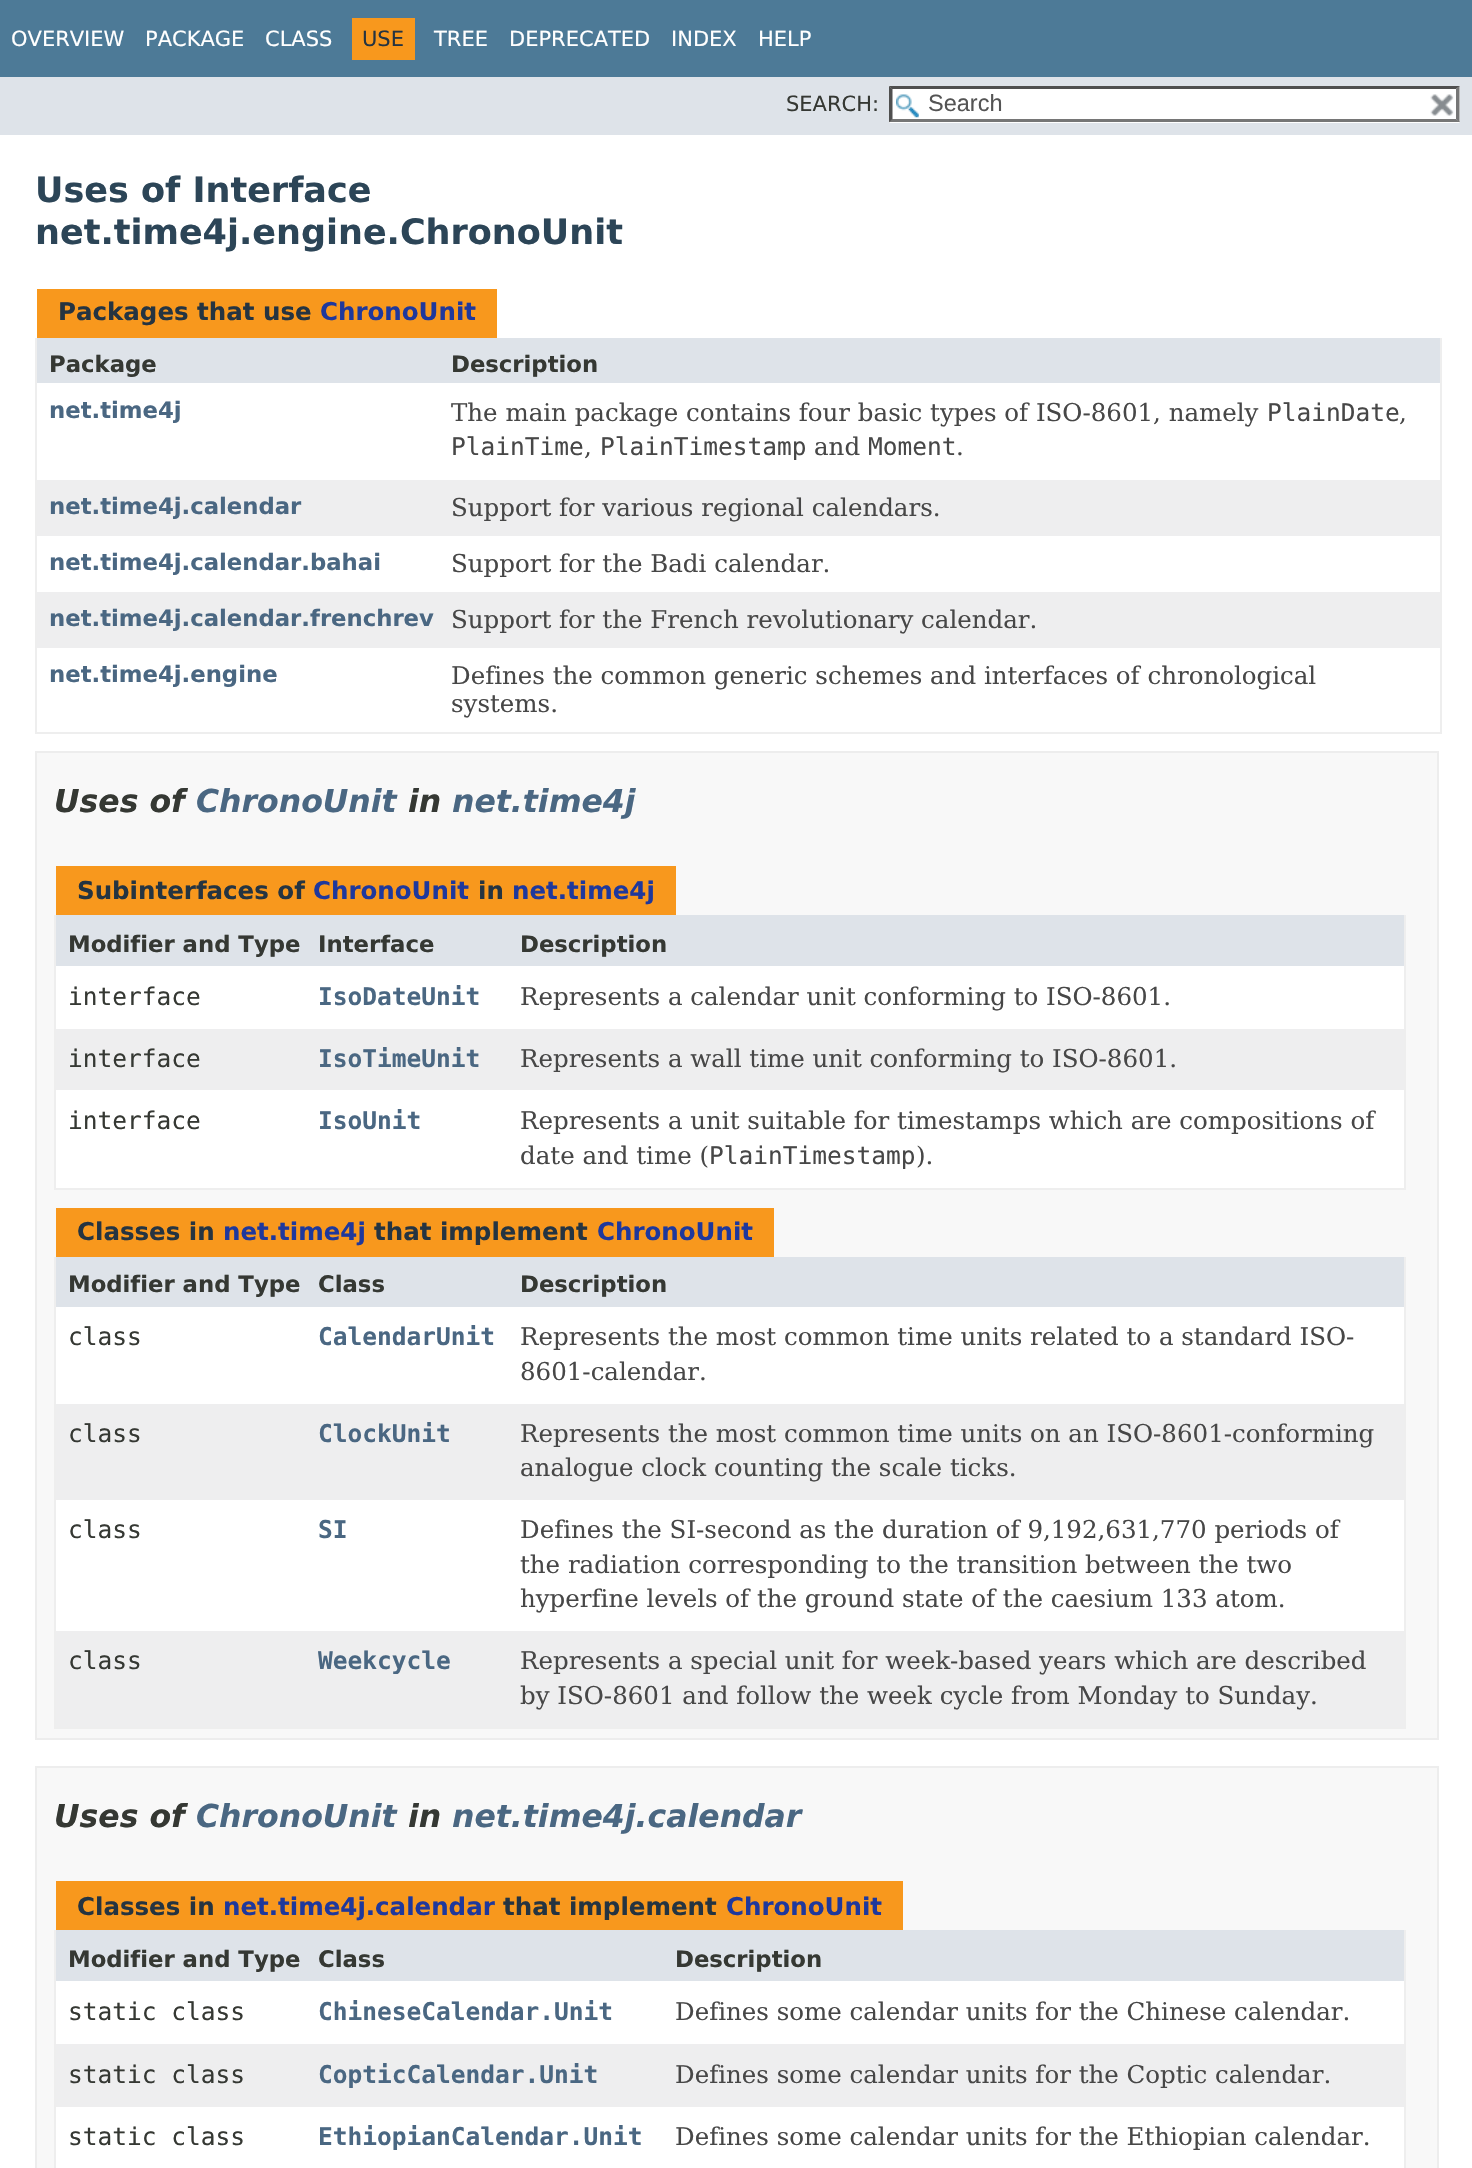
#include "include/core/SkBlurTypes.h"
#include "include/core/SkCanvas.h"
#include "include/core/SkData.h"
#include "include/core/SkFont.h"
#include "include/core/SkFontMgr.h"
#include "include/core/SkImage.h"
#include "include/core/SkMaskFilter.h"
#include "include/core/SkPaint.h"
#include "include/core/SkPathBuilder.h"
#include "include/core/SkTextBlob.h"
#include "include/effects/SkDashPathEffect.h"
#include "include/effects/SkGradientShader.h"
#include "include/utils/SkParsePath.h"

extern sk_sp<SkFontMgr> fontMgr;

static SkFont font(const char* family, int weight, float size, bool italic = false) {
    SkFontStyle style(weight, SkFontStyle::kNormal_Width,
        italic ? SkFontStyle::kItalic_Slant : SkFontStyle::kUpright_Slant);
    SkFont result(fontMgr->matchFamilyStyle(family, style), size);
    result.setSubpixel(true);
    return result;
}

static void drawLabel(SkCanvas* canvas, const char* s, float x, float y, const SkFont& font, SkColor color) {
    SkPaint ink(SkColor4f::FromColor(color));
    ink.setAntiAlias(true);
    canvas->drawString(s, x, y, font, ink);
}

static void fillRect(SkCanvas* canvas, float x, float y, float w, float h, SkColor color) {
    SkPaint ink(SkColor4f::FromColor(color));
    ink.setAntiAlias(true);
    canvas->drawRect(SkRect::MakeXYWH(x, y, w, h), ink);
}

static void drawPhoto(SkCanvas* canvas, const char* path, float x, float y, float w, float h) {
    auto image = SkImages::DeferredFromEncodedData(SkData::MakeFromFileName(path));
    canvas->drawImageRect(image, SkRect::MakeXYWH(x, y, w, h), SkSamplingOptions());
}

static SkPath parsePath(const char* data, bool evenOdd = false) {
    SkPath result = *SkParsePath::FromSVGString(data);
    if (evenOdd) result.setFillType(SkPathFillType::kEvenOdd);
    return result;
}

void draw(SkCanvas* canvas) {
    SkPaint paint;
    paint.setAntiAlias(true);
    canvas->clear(0xFFFFFFFF);
    fillRect(canvas, 0, 0, 1472, 77, 0xFF4D7A97);
    SkFont font1 = font("DejaVu Sans", 400, 21);
    drawLabel(canvas, "OVERVIEW", 11, 46, font1, 0xFFFFFFFF);
    drawLabel(canvas, "PACKAGE", 145, 46, font1, 0xFFFFFFFF);
    drawLabel(canvas, "CLASS", 265, 46, font1, 0xFFFFFFFF);
    fillRect(canvas, 352, 18, 63, 42, 0xFFF8981D);
    drawLabel(canvas, "USE", 362, 46, font1, 0xFF253441);
    drawLabel(canvas, "TREE", 434, 46, font1, 0xFFFFFFFF);
    drawLabel(canvas, "DEPRECATED", 509, 46, font1, 0xFFFFFFFF);
    drawLabel(canvas, "INDEX", 671, 46, font1, 0xFFFFFFFF);
    drawLabel(canvas, "HELP", 758, 46, font1, 0xFFFFFFFF);
    fillRect(canvas, 0, 77, 1472, 58, 0xFFDEE3E9);
    drawLabel(canvas, "SEARCH:", 786, 111, font1, 0xFF353833);
    fillRect(canvas, 889, 86, 571, 37, 0xFFFFFFFF);
    drawPhoto(canvas, "assets/img1.png", 896, 94, 23, 24);
    paint.setColor(0xFF4F4F4F);
    canvas->drawPath(parsePath("M889 86H1460L1456 89H892Z"), paint);
    paint.setColor(0xFF767676);
    canvas->drawPath(parsePath("M1459.5 86V122.5L1456 119V89Z"), paint);
    canvas->drawPath(parsePath("M1460 122H889L892 119H1456Z"), paint);
    paint.setColor(0xFF4F4F4F);
    canvas->drawPath(parsePath("M889 122.5V86L892.5 89V119Z"), paint);
    SkFont font2 = font("Liberation Sans", 400, 23.5f);
    drawLabel(canvas, "Search", 928, 111, font2, 0xFF545454);
    drawPhoto(canvas, "assets/img2.png", 1430, 94, 24, 22);
    SkFont font3 = font("DejaVu Sans", 700, 35);
    drawLabel(canvas, "Uses of Interface", 35, 202, font3, 0xFF2C4557);
    drawLabel(canvas, "net.time4j.engine.ChronoUnit", 35, 244, font3, 0xFF2C4557);
    fillRect(canvas, 37, 289, 460, 49, 0xFFF8981D);
    SkFont font4 = font("DejaVu Sans", 700, 24.5f);
    drawLabel(canvas, "Packages that use", 58, 320, font4, 0xFF253441);
    drawLabel(canvas, "ChronoUnit", 320, 320, font4, 0xFF1F389C);
    fillRect(canvas, 1440, 338, 2, 395, 0xFFEEEEEE);
    fillRect(canvas, 35, 732, 1407, 2, 0xFFEEEEEE);
    fillRect(canvas, 35, 338, 2, 395, 0xFFEEEEEE);
    fillRect(canvas, 37, 338, 1403, 45, 0xFFDEE3E9);
    SkFont font5 = font("DejaVu Sans", 700, 22.75f);
    drawLabel(canvas, "Package", 49, 372, font5, 0xFF353833);
    drawLabel(canvas, "Description", 451, 372, font5, 0xFF353833);
    drawLabel(canvas, "net.time4j", 49, 418, font5, 0xFF4A6782);
    SkFont font6 = font("DejaVu Serif", 400, 24.5f);
    drawLabel(canvas, "The main package contains four basic types of ISO-8601, namely", 451, 421, font6, 0xFF474747);
    SkFont font7 = font("DejaVu Sans Mono", 400, 24.5f);
    drawLabel(canvas, "PlainDate", 1267, 421, font7, 0xFF474747);
    drawLabel(canvas, ",", 1399, 421, font6, 0xFF474747);
    drawLabel(canvas, "PlainTime", 451, 455, font7, 0xFF474747);
    drawLabel(canvas, ",", 584, 455, font6, 0xFF474747);
    drawLabel(canvas, "PlainTimestamp", 600, 455, font7, 0xFF474747);
    drawLabel(canvas, "and", 814, 455, font6, 0xFF474747);
    drawLabel(canvas, "Moment", 868, 455, font7, 0xFF474747);
    drawLabel(canvas, ".", 956, 455, font6, 0xFF474747);
    fillRect(canvas, 37, 480, 1403, 56, 0xFFEEEEEF);
    drawLabel(canvas, "net.time4j.calendar", 49, 514, font5, 0xFF4A6782);
    drawLabel(canvas, "Support for various regional calendars.", 451, 516, font6, 0xFF474747);
    drawLabel(canvas, "net.time4j.calendar.bahai", 49, 570, font5, 0xFF4A6782);
    drawLabel(canvas, "Support for the Badi calendar.", 451, 572, font6, 0xFF474747);
    fillRect(canvas, 37, 592, 1403, 56, 0xFFEEEEEF);
    drawLabel(canvas, "net.time4j.calendar.frenchrev", 49, 626, font5, 0xFF4A6782);
    drawLabel(canvas, "Support for the French revolutionary calendar.", 451, 628, font6, 0xFF474747);
    drawLabel(canvas, "net.time4j.engine", 49, 682, font5, 0xFF4A6782);
    drawLabel(canvas, "Defines the common generic schemes and interfaces of chronological", 451, 684, font6, 0xFF474747);
    drawLabel(canvas, "systems.", 451, 712, font6, 0xFF474747);
    paint.setColor(0xFFF8F8F8);
    canvas->drawRect(SkRect::MakeXYWH(36, 752, 1402, 987), paint);
    paint.setStroke(true);
    paint.setStrokeWidth(2);
    paint.setColor(0xFFEDEDED);
    canvas->drawRect(SkRect::MakeXYWH(36, 752, 1402, 987), paint);
    SkFont font8 = font("DejaVu Sans", 700, 31.5f, true);
    drawLabel(canvas, "Uses of", 54, 812, font8, 0xFF353833);
    drawLabel(canvas, "ChronoUnit", 196, 812, font8, 0xFF4A6782);
    drawLabel(canvas, "in", 408, 812, font8, 0xFF353833);
    drawLabel(canvas, "net.time4j", 452, 812, font8, 0xFF4A6782);
    fillRect(canvas, 56, 866, 620, 49, 0xFFF8981D);
    drawLabel(canvas, "Subinterfaces of", 77, 899, font4, 0xFF253441);
    drawLabel(canvas, "ChronoUnit", 313, 899, font4, 0xFF1F389C);
    drawLabel(canvas, "in", 478, 899, font4, 0xFF253441);
    drawLabel(canvas, "net.time4j", 512, 899, font4, 0xFF1F389C);
    fillRect(canvas, 1404, 915, 2, 275, 0xFFEEEEEE);
    fillRect(canvas, 54, 1188, 1351, 2, 0xFFEEEEEE);
    fillRect(canvas, 54, 915, 2, 275, 0xFFEEEEEE);
    fillRect(canvas, 56, 915, 452, 51, 0xFFDEE3E9);
    drawLabel(canvas, "Modifier and Type", 68, 952, font5, 0xFF353833);
    drawLabel(canvas, "Interface", 318, 952, font5, 0xFF353833);
    fillRect(canvas, 508, 915, 896, 51, 0xFFDEE3E9);
    drawLabel(canvas, "Description", 520, 952, font5, 0xFF353833);
    fillRect(canvas, 56, 966, 452, 63, 0xFFFFFFFF);
    drawLabel(canvas, "interface", 68, 1005, font7, 0xFF353833);
    SkFont font9 = font("DejaVu Sans Mono", 700, 24.5f);
    drawLabel(canvas, "IsoDateUnit", 318, 1005, font9, 0xFF4A6782);
    fillRect(canvas, 508, 966, 896, 63, 0xFFFFFFFF);
    drawLabel(canvas, "Represents a calendar unit conforming to ISO-8601.", 520, 1005, font6, 0xFF474747);
    fillRect(canvas, 56, 1029, 452, 61, 0xFFEEEEEF);
    drawLabel(canvas, "interface", 68, 1067, font7, 0xFF353833);
    drawLabel(canvas, "IsoTimeUnit", 318, 1067, font9, 0xFF4A6782);
    fillRect(canvas, 508, 1029, 896, 61, 0xFFEEEEEF);
    drawLabel(canvas, "Represents a wall time unit conforming to ISO-8601.", 520, 1067, font6, 0xFF474747);
    fillRect(canvas, 56, 1090, 452, 98, 0xFFFFFFFF);
    drawLabel(canvas, "interface", 68, 1129, font7, 0xFF353833);
    drawLabel(canvas, "IsoUnit", 318, 1129, font9, 0xFF4A6782);
    fillRect(canvas, 508, 1090, 896, 98, 0xFFFFFFFF);
    drawLabel(canvas, "Represents a unit suitable for timestamps which are compositions of", 520, 1129, font6, 0xFF474747);
    drawLabel(canvas, "date and time (", 520, 1164, font6, 0xFF474747);
    drawLabel(canvas, "PlainTimestamp", 709, 1164, font7, 0xFF474747);
    drawLabel(canvas, ").", 916, 1164, font6, 0xFF474747);
    fillRect(canvas, 56, 1208, 718, 49, 0xFFF8981D);
    drawLabel(canvas, "Classes in", 77, 1240, font4, 0xFF253441);
    drawLabel(canvas, "net.time4j", 223, 1240, font4, 0xFF1F389C);
    drawLabel(canvas, "that implement", 374, 1240, font4, 0xFF253441);
    drawLabel(canvas, "ChronoUnit", 597, 1240, font4, 0xFF1F389C);
    fillRect(canvas, 1404, 1257, 2, 472, 0xFFEEEEEE);
    fillRect(canvas, 54, 1727, 1351, 2, 0xFFEEEEEE);
    fillRect(canvas, 54, 1257, 2, 472, 0xFFEEEEEE);
    fillRect(canvas, 56, 1257, 452, 50, 0xFFDEE3E9);
    drawLabel(canvas, "Modifier and Type", 68, 1292, font5, 0xFF353833);
    drawLabel(canvas, "Class", 318, 1292, font5, 0xFF353833);
    fillRect(canvas, 508, 1257, 896, 50, 0xFFDEE3E9);
    drawLabel(canvas, "Description", 520, 1292, font5, 0xFF353833);
    fillRect(canvas, 56, 1307, 452, 97, 0xFFFFFFFF);
    drawLabel(canvas, "class", 68, 1345, font7, 0xFF353833);
    drawLabel(canvas, "CalendarUnit", 318, 1345, font9, 0xFF4A6782);
    fillRect(canvas, 508, 1307, 896, 97, 0xFFFFFFFF);
    drawLabel(canvas, "Represents the most common time units related to a standard ISO-", 520, 1345, font6, 0xFF474747);
    drawLabel(canvas, "8601-calendar.", 520, 1380, font6, 0xFF474747);
    fillRect(canvas, 56, 1404, 452, 96, 0xFFEEEEEF);
    drawLabel(canvas, "class", 68, 1442, font7, 0xFF353833);
    drawLabel(canvas, "ClockUnit", 318, 1442, font9, 0xFF4A6782);
    fillRect(canvas, 508, 1404, 896, 96, 0xFFEEEEEF);
    drawLabel(canvas, "Represents the most common time units on an ISO-8601-conforming", 520, 1442, font6, 0xFF474747);
    drawLabel(canvas, "analogue clock counting the scale ticks.", 520, 1476, font6, 0xFF474747);
    fillRect(canvas, 56, 1500, 452, 131, 0xFFFFFFFF);
    drawLabel(canvas, "class", 68, 1538, font7, 0xFF353833);
    drawLabel(canvas, "SI", 318, 1538, font9, 0xFF4A6782);
    fillRect(canvas, 508, 1500, 896, 131, 0xFFFFFFFF);
    drawLabel(canvas, "Defines the SI-second as the duration of 9,192,631,770 periods of", 520, 1538, font6, 0xFF474747);
    drawLabel(canvas, "the radiation corresponding to the transition between the two", 520, 1573, font6, 0xFF474747);
    drawLabel(canvas, "hyperfine levels of the ground state of the caesium 133 atom.", 520, 1607, font6, 0xFF474747);
    fillRect(canvas, 56, 1631, 452, 96, 0xFFEEEEEF);
    drawLabel(canvas, "class", 68, 1669, font7, 0xFF353833);
    drawLabel(canvas, "Weekcycle", 318, 1669, font9, 0xFF4A6782);
    fillRect(canvas, 508, 1631, 896, 96, 0xFFEEEEEF);
    drawLabel(canvas, "Represents a special unit for week-based years which are described", 520, 1669, font6, 0xFF474747);
    drawLabel(canvas, "by ISO-8601 and follow the week cycle from Monday to Sunday.", 520, 1704, font6, 0xFF474747);
    paint.setStroke(false);
    paint.setColor(0xFFF8F8F8);
    canvas->drawRect(SkRect::MakeXYWH(36, 1767, 1402, 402), paint);
    paint.setStroke(true);
    paint.setColor(0xFFEDEDED);
    canvas->drawRect(SkRect::MakeXYWH(36, 1767, 1402, 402), paint);
    drawLabel(canvas, "Uses of", 54, 1827, font8, 0xFF353833);
    drawLabel(canvas, "ChronoUnit", 196, 1827, font8, 0xFF4A6782);
    drawLabel(canvas, "in", 408, 1827, font8, 0xFF353833);
    drawLabel(canvas, "net.time4j.calendar", 452, 1827, font8, 0xFF4A6782);
    fillRect(canvas, 56, 1881, 847, 49, 0xFFF8981D);
    drawLabel(canvas, "Classes in", 77, 1915, font4, 0xFF253441);
    drawLabel(canvas, "net.time4j.calendar", 223, 1915, font4, 0xFF1F389C);
    drawLabel(canvas, "that implement", 503, 1915, font4, 0xFF253441);
    drawLabel(canvas, "ChronoUnit", 726, 1915, font4, 0xFF1F389C);
    fillRect(canvas, 1404, 1930, 2, 238, 0xFFEEEEEE);
    fillRect(canvas, 54, 1930, 2, 238, 0xFFEEEEEE);
    fillRect(canvas, 56, 1930, 607, 51, 0xFFDEE3E9);
    drawLabel(canvas, "Modifier and Type", 68, 1967, font5, 0xFF353833);
    drawLabel(canvas, "Class", 318, 1967, font5, 0xFF353833);
    fillRect(canvas, 663, 1930, 741, 51, 0xFFDEE3E9);
    drawLabel(canvas, "Description", 675, 1967, font5, 0xFF353833);
    fillRect(canvas, 56, 1981, 607, 63, 0xFFFFFFFF);
    drawLabel(canvas, "static class", 68, 2020, font7, 0xFF353833);
    drawLabel(canvas, "ChineseCalendar.Unit", 318, 2020, font9, 0xFF4A6782);
    fillRect(canvas, 663, 1981, 741, 63, 0xFFFFFFFF);
    drawLabel(canvas, "Defines some calendar units for the Chinese calendar.", 675, 2020, font6, 0xFF474747);
    fillRect(canvas, 56, 2044, 607, 63, 0xFFEEEEEF);
    drawLabel(canvas, "static class", 68, 2083, font7, 0xFF353833);
    drawLabel(canvas, "CopticCalendar.Unit", 318, 2083, font9, 0xFF4A6782);
    fillRect(canvas, 663, 2044, 741, 63, 0xFFEEEEEF);
    drawLabel(canvas, "Defines some calendar units for the Coptic calendar.", 675, 2083, font6, 0xFF474747);
    fillRect(canvas, 56, 2107, 607, 61, 0xFFFFFFFF);
    drawLabel(canvas, "static class", 68, 2145, font7, 0xFF353833);
    drawLabel(canvas, "EthiopianCalendar.Unit", 318, 2145, font9, 0xFF4A6782);
    fillRect(canvas, 663, 2107, 741, 61, 0xFFFFFFFF);
    drawLabel(canvas, "Defines some calendar units for the Ethiopian calendar.", 675, 2145, font6, 0xFF474747);
}
